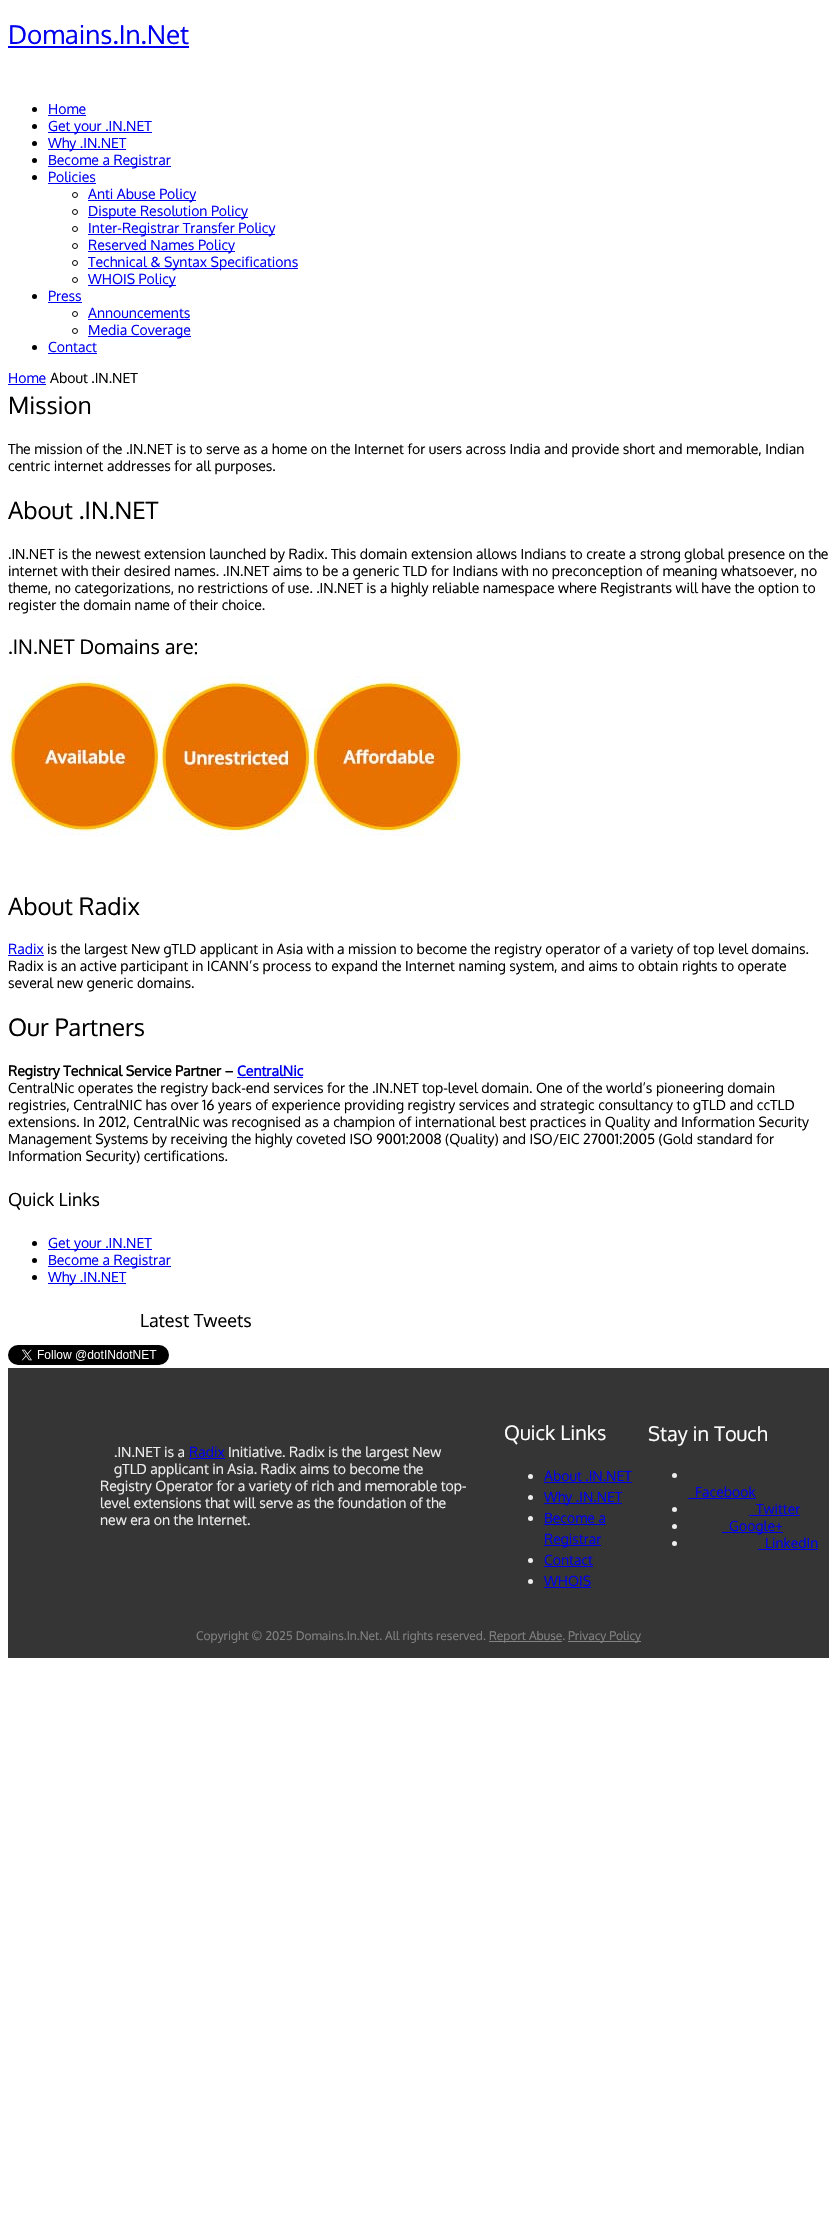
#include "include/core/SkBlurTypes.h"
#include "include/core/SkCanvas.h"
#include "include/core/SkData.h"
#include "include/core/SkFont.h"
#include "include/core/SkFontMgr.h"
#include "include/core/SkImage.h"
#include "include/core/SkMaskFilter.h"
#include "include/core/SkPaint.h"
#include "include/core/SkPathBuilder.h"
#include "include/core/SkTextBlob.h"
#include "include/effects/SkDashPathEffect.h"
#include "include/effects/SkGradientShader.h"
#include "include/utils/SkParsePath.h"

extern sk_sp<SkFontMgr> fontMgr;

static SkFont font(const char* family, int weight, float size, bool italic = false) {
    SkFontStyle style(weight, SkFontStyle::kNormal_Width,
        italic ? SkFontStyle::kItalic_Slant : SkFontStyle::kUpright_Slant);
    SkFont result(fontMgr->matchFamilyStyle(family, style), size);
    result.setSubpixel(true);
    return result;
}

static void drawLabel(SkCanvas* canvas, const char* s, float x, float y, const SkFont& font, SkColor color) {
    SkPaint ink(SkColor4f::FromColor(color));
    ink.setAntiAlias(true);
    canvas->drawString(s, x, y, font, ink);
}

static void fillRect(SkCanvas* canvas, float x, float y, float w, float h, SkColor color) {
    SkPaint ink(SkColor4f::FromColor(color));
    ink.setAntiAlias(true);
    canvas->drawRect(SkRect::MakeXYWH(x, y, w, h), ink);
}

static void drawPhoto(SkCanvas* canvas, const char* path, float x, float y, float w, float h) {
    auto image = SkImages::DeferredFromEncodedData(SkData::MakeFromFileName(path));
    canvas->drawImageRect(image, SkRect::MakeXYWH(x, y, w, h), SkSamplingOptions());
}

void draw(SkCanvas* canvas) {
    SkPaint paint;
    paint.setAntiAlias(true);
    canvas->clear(0xFFFFFFFF);
    SkFont font1 = font("Oxygen", 400, 26);
    drawLabel(canvas, "Domains.In.Net", 8, 44, font1, 0xFF0000EE);
    fillRect(canvas, 8, 46, 181, 2, 0xFF0000EE);
    paint.setColor(0xFF000000);
    canvas->drawCircle(34.5f, 109.5f, 2.5f, paint);
    SkFont font2 = font("Oxygen", 400, 14);
    drawLabel(canvas, "Home", 48, 114, font2, 0xFF0000EE);
    fillRect(canvas, 48, 115, 38, 1, 0xFF0000EE);
    canvas->drawCircle(34.5f, 126.5f, 2.5f, paint);
    fillRect(canvas, 48, 132, 104, 1, 0xFF0000EE);
    drawLabel(canvas, "Get your .IN.NET", 48, 131, font2, 0xFF0000EE);
    canvas->drawCircle(34.5f, 143.5f, 2.5f, paint);
    fillRect(canvas, 48, 149, 78, 1, 0xFF0000EE);
    drawLabel(canvas, "Why .IN.NET", 48, 148, font2, 0xFF0000EE);
    canvas->drawCircle(34.5f, 160.5f, 2.5f, paint);
    fillRect(canvas, 48, 166, 123, 1, 0xFF0000EE);
    drawLabel(canvas, "Become a Registrar", 48, 165, font2, 0xFF0000EE);
    canvas->drawCircle(34.5f, 177.5f, 2.5f, paint);
    drawLabel(canvas, "Policies", 48, 182, font2, 0xFF0000EE);
    fillRect(canvas, 48, 183, 48, 1, 0xFF0000EE);
    paint.setStroke(true);
    paint.setStrokeWidth(1);
    canvas->drawCircle(75, 195, 2.5f, paint);
    fillRect(canvas, 88, 200, 108, 1, 0xFF0000EE);
    drawLabel(canvas, "Anti Abuse Policy", 88, 199, font2, 0xFF0000EE);
    canvas->drawCircle(75, 212, 2.5f, paint);
    fillRect(canvas, 88, 217, 160, 1, 0xFF0000EE);
    drawLabel(canvas, "Dispute Resolution Policy", 88, 216, font2, 0xFF0000EE);
    canvas->drawCircle(75, 229, 2.5f, paint);
    fillRect(canvas, 88, 234, 187, 1, 0xFF0000EE);
    drawLabel(canvas, "Inter-Registrar Transfer Policy", 88, 233, font2, 0xFF0000EE);
    canvas->drawCircle(75, 246, 2.5f, paint);
    fillRect(canvas, 88, 251, 147, 1, 0xFF0000EE);
    drawLabel(canvas, "Reserved Names Policy", 88, 250, font2, 0xFF0000EE);
    canvas->drawCircle(75, 263, 2.5f, paint);
    fillRect(canvas, 88, 268, 210, 1, 0xFF0000EE);
    drawLabel(canvas, "Technical & Syntax Specifications", 88, 267, font2, 0xFF0000EE);
    canvas->drawCircle(75, 280, 2.5f, paint);
    fillRect(canvas, 88, 285, 88, 1, 0xFF0000EE);
    drawLabel(canvas, "WHOIS Policy", 88, 284, font2, 0xFF0000EE);
    paint.setStroke(false);
    canvas->drawCircle(34.5f, 296.5f, 2.5f, paint);
    drawLabel(canvas, "Press", 48, 301, font2, 0xFF0000EE);
    fillRect(canvas, 48, 302, 34, 1, 0xFF0000EE);
    paint.setStroke(true);
    canvas->drawCircle(75, 314, 2.5f, paint);
    drawLabel(canvas, "Announcements", 88, 318, font2, 0xFF0000EE);
    fillRect(canvas, 88, 319, 102, 1, 0xFF0000EE);
    canvas->drawCircle(75, 331, 2.5f, paint);
    fillRect(canvas, 88, 336, 103, 1, 0xFF0000EE);
    drawLabel(canvas, "Media Coverage", 88, 335, font2, 0xFF0000EE);
    paint.setStroke(false);
    canvas->drawCircle(34.5f, 347.5f, 2.5f, paint);
    drawLabel(canvas, "Contact", 48, 352, font2, 0xFF0000EE);
    fillRect(canvas, 48, 353, 49, 1, 0xFF0000EE);
    drawLabel(canvas, "Home", 8, 383, font2, 0xFF0000EE);
    fillRect(canvas, 8, 384, 38, 1, 0xFF0000EE);
    drawLabel(canvas, "About .IN.NET", 50, 383, font2, 0xFF000000);
    SkFont font3 = font("Oxygen", 400, 24);
    drawLabel(canvas, "Mission", 8, 414, font3, 0xFF000000);
    drawLabel(canvas, "The mission of the .IN.NET is to serve as a home on the Internet for users across India and provide short and memorable, Indian", 8, 454, font2, 0xFF000000);
    drawLabel(canvas, "centric internet addresses for all purposes.", 8, 471, font2, 0xFF000000);
    drawLabel(canvas, "About .IN.NET", 8, 519, font3, 0xFF000000);
    drawLabel(canvas, ".IN.NET is the newest extension launched by Radix. This domain extension allows Indians to create a strong global presence on the", 8, 559, font2, 0xFF000000);
    drawLabel(canvas, "internet with their desired names. .IN.NET aims to be a generic TLD for Indians with no preconception of meaning whatsoever, no", 8, 576, font2, 0xFF000000);
    drawLabel(canvas, "theme, no categorizations, no restrictions of use. .IN.NET is a highly reliable namespace where Registrants will have the option to", 8, 593, font2, 0xFF000000);
    drawLabel(canvas, "register the domain name of their choice.", 8, 610, font2, 0xFF000000);
    SkFont font4 = font("Oxygen", 400, 20);
    drawLabel(canvas, ".IN.NET Domains are:", 8, 654, font4, 0xFF000000);
    drawPhoto(canvas, "assets/img1.png", 8, 676, 456, 160);
    drawLabel(canvas, "About Radix", 8, 915, font3, 0xFF000000);
    drawLabel(canvas, "Radix", 8, 954, font2, 0xFF0000EE);
    fillRect(canvas, 8, 955, 36, 1, 0xFF0000EE);
    drawLabel(canvas, "is the largest New gTLD applicant in Asia with a mission to become the registry operator of a variety of top level domains.", 47, 954, font2, 0xFF000000);
    drawLabel(canvas, "Radix is an active participant in ICANN’s process to expand the Internet naming system, and aims to obtain rights to operate", 8, 971, font2, 0xFF000000);
    drawLabel(canvas, "several new generic domains.", 8, 988, font2, 0xFF000000);
    drawLabel(canvas, "Our Partners", 8, 1036, font3, 0xFF000000);
    SkFont font5 = font("Oxygen", 700, 14);
    drawLabel(canvas, "Registry Technical Service Partner –", 8, 1076, font5, 0xFF000000);
    drawLabel(canvas, "CentralNic", 237, 1076, font5, 0xFF0000EE);
    fillRect(canvas, 237, 1077, 66, 1, 0xFF0000EE);
    drawLabel(canvas, "CentralNic operates the registry back-end services for the .IN.NET top-level domain. One of the world’s pioneering domain", 8, 1093, font2, 0xFF000000);
    drawLabel(canvas, "registries, CentralNIC has over 16 years of experience providing registry services and strategic consultancy to gTLD and ccTLD", 8, 1110, font2, 0xFF000000);
    drawLabel(canvas, "extensions. In 2012, CentralNic was recognised as a champion of international best practices in Quality and Information Security", 8, 1127, font2, 0xFF000000);
    drawLabel(canvas, "Management Systems by receiving the highly coveted ISO 9001:2008 (Quality) and ISO/EIC 27001:2005 (Gold standard for", 8, 1144, font2, 0xFF000000);
    drawLabel(canvas, "Information Security) certifications.", 8, 1161, font2, 0xFF000000);
    SkFont font6 = font("Oxygen", 400, 18);
    drawLabel(canvas, "Quick Links", 8, 1206, font6, 0xFF000000);
    canvas->drawCircle(34.5f, 1243.5f, 2.5f, paint);
    fillRect(canvas, 48, 1249, 104, 1, 0xFF0000EE);
    drawLabel(canvas, "Get your .IN.NET", 48, 1248, font2, 0xFF0000EE);
    canvas->drawCircle(34.5f, 1260.5f, 2.5f, paint);
    fillRect(canvas, 48, 1266, 123, 1, 0xFF0000EE);
    drawLabel(canvas, "Become a Registrar", 48, 1265, font2, 0xFF0000EE);
    canvas->drawCircle(34.5f, 1277.5f, 2.5f, paint);
    fillRect(canvas, 48, 1283, 78, 1, 0xFF0000EE);
    drawLabel(canvas, "Why .IN.NET", 48, 1282, font2, 0xFF0000EE);
    drawLabel(canvas, "Latest Tweets", 140, 1327, font6, 0xFF000000);
    drawPhoto(canvas, "assets/img2.png", 8, 1345, 161, 20);
    fillRect(canvas, 8, 1368, 821, 290, 0xFF353535);
    drawLabel(canvas, ".IN.NET is a", 114, 1457, font2, 0xFFEEEEEE);
    drawLabel(canvas, "Radix", 189, 1457, font2, 0xFF0000EE);
    fillRect(canvas, 189, 1458, 36, 1, 0xFF0000EE);
    drawLabel(canvas, "Initiative. Radix is the largest New", 228, 1457, font2, 0xFFEEEEEE);
    drawLabel(canvas, "gTLD applicant in Asia. Radix aims to become the", 114, 1474, font2, 0xFFEEEEEE);
    drawLabel(canvas, "Registry Operator for a variety of rich and memorable top-", 100, 1491, font2, 0xFFEEEEEE);
    drawLabel(canvas, "level extensions that will serve as the foundation of the", 100, 1508, font2, 0xFFEEEEEE);
    drawLabel(canvas, "new era on the Internet.", 100, 1525, font2, 0xFFEEEEEE);
    drawLabel(canvas, "Quick Links", 504, 1440, font4, 0xFFFFFFFF);
    paint.setColor(0xFFEEEEEE);
    canvas->drawCircle(530.5f, 1476.5f, 2.5f, paint);
    drawLabel(canvas, "About .IN.NET", 544, 1481, font2, 0xFF0000EE);
    fillRect(canvas, 544, 1482, 88, 1, 0xFF0000EE);
    canvas->drawCircle(530.5f, 1497.5f, 2.5f, paint);
    fillRect(canvas, 544, 1503, 78, 1, 0xFF0000EE);
    drawLabel(canvas, "Why .IN.NET", 544, 1502, font2, 0xFF0000EE);
    canvas->drawCircle(530.5f, 1518.5f, 2.5f, paint);
    drawLabel(canvas, "Become a", 544, 1523, font2, 0xFF0000EE);
    fillRect(canvas, 544, 1524, 62, 1, 0xFF0000EE);
    fillRect(canvas, 544, 1545, 57, 1, 0xFF0000EE);
    drawLabel(canvas, "Registrar", 544, 1544, font2, 0xFF0000EE);
    canvas->drawCircle(530.5f, 1560.5f, 2.5f, paint);
    drawLabel(canvas, "Contact", 544, 1565, font2, 0xFF0000EE);
    fillRect(canvas, 544, 1566, 49, 1, 0xFF0000EE);
    canvas->drawCircle(530.5f, 1581.5f, 2.5f, paint);
    drawLabel(canvas, "WHOIS", 544, 1586, font2, 0xFF0000EE);
    fillRect(canvas, 544, 1587, 47, 1, 0xFF0000EE);
    drawLabel(canvas, "Stay in Touch", 648, 1441, font4, 0xFFFFFFFF);
    canvas->drawCircle(674.5f, 1475.5f, 2.5f, paint);
    drawLabel(canvas, "Facebook", 695, 1497, font2, 0xFF0000EE);
    fillRect(canvas, 688, 1498, 68, 1, 0xFF0000EE);
    canvas->drawCircle(674.5f, 1509.5f, 2.5f, paint);
    drawLabel(canvas, "Twitter", 756, 1514, font2, 0xFF0000EE);
    fillRect(canvas, 749, 1515, 51, 1, 0xFF0000EE);
    canvas->drawCircle(674.5f, 1526.5f, 2.5f, paint);
    fillRect(canvas, 722, 1532, 61, 1, 0xFF0000EE);
    drawLabel(canvas, "Google+", 729, 1531, font2, 0xFF0000EE);
    canvas->drawCircle(674.5f, 1543.5f, 2.5f, paint);
    drawLabel(canvas, "LinkedIn", 765, 1548, font2, 0xFF0000EE);
    fillRect(canvas, 758, 1549, 60, 1, 0xFF0000EE);
    SkFont font7 = font("Oxygen", 400, 12);
    drawLabel(canvas, "Copyright © 2025 Domains.In.Net. All rights reserved.", 196, 1640, font7, 0xFF828282);
    fillRect(canvas, 489, 1641, 73, 1, 0xFF828282);
    drawLabel(canvas, "Report Abuse.", 489, 1640, font7, 0xFF828282);
    fillRect(canvas, 568, 1641, 73, 1, 0xFF828282);
    drawLabel(canvas, "Privacy Policy", 568, 1640, font7, 0xFF828282);
}
